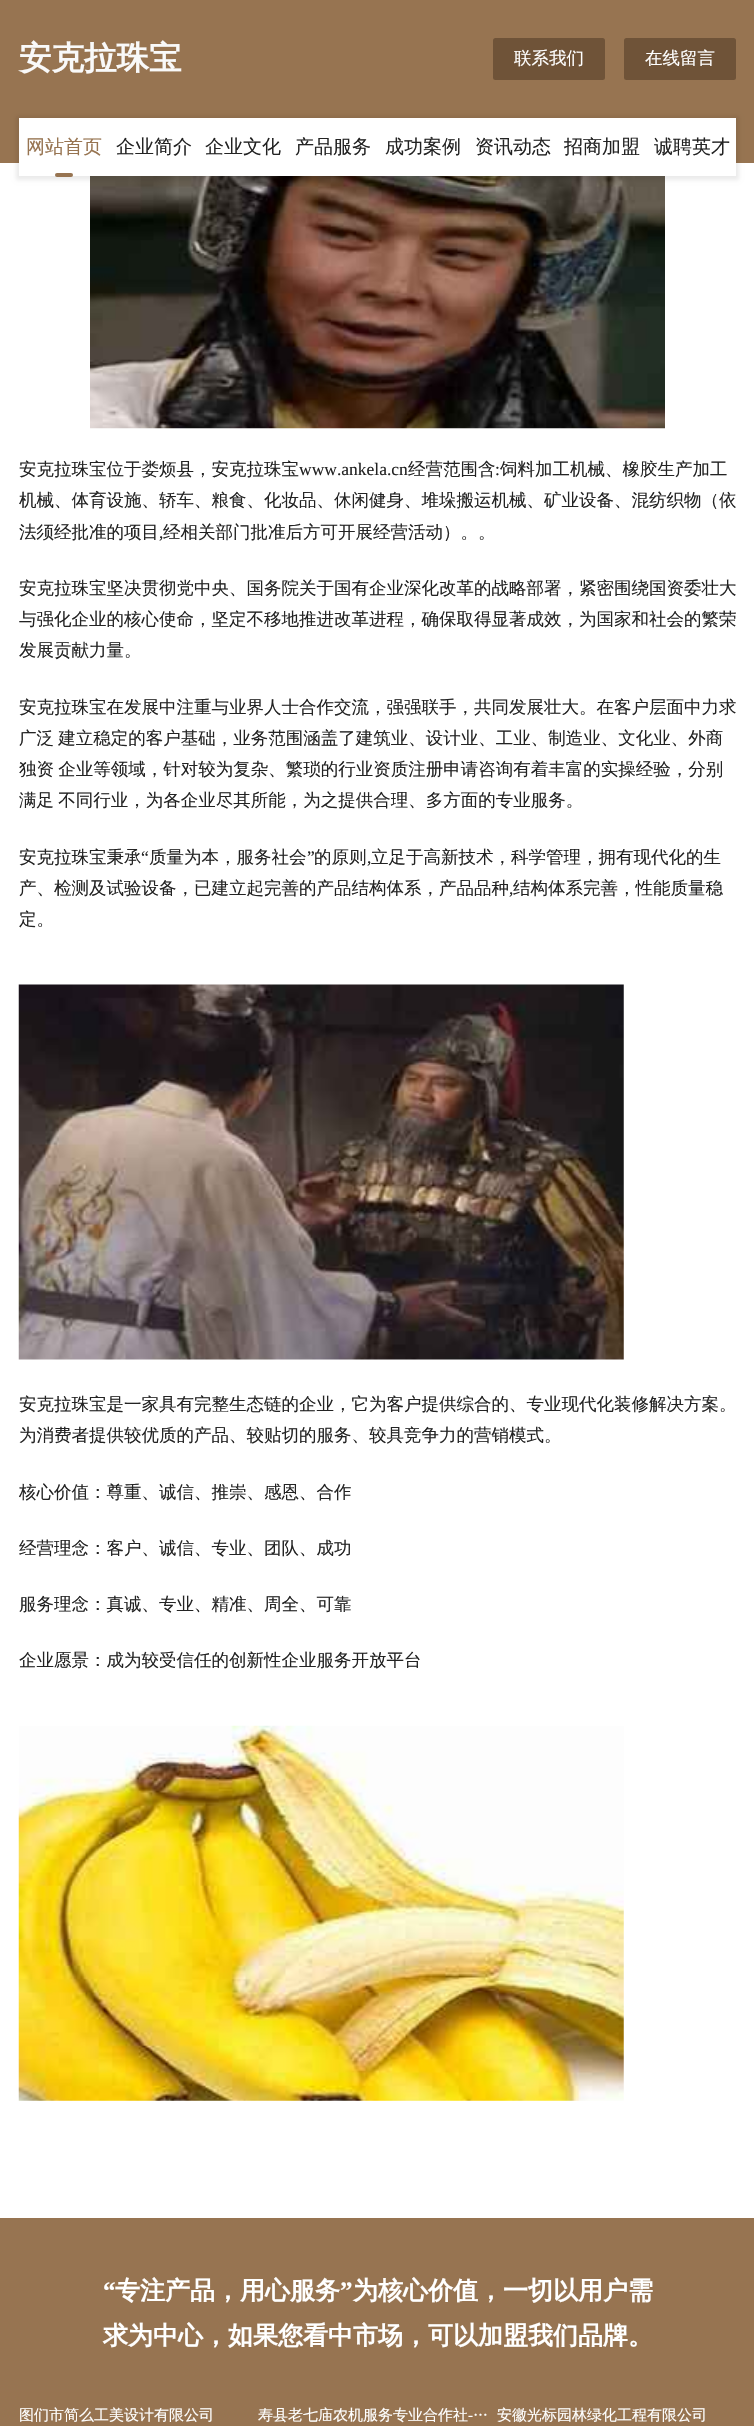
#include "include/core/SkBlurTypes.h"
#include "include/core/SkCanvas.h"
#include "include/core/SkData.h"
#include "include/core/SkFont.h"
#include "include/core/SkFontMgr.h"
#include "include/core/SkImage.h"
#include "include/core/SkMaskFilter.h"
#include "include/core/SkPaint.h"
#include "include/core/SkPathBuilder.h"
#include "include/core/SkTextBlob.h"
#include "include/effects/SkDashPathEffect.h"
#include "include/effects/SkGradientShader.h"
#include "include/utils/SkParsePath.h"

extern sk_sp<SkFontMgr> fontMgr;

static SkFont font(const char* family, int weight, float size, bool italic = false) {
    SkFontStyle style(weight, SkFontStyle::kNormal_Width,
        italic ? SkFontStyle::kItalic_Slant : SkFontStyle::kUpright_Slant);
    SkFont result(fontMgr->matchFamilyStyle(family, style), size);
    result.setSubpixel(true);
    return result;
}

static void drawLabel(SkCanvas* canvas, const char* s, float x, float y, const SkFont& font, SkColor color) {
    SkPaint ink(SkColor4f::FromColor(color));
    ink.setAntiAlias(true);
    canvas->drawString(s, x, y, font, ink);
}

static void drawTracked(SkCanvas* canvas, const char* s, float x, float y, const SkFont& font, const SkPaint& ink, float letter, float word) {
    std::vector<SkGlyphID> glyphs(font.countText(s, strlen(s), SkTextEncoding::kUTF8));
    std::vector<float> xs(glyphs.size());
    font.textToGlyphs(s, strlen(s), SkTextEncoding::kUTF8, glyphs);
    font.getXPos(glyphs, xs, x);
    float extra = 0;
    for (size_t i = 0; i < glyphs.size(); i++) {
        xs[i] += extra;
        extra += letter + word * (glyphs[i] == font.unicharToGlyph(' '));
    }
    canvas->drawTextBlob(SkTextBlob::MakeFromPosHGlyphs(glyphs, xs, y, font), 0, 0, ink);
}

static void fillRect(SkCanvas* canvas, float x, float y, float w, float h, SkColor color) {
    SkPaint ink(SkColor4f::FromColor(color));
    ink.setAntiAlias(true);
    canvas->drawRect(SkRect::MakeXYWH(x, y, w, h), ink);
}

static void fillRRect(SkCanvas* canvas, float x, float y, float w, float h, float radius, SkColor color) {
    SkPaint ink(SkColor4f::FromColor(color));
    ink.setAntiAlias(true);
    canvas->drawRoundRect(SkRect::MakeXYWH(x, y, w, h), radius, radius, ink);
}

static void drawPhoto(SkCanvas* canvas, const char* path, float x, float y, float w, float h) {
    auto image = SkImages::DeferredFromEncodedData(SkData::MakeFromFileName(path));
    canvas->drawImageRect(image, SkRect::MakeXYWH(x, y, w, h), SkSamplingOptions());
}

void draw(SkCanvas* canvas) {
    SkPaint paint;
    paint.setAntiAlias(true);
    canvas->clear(0xFFFFFFFF);
    fillRect(canvas, 0, 0, 754, 163, 0xFF977451);
    SkFont font1 = font("WenQuanYi Zen Hei", 700, 32.5f);
    drawLabel(canvas, "安克拉珠宝", 19, 69, font1, 0xFFF9F9F9);
    fillRRect(canvas, 493, 38, 112, 42, 2.5f, 0xFF6F5338);
    SkFont font2 = font("WenQuanYi Zen Hei", 500, 17.5f);
    drawLabel(canvas, "联系我们", 514, 64, font2, 0xFFFFFFFF);
    fillRRect(canvas, 624, 38, 112, 42, 2.5f, 0xFF6F5338);
    drawLabel(canvas, "在线留言", 645, 64, font2, 0xFFFFFFFF);
    drawPhoto(canvas, "assets/img1.png", 90, 176, 575, 253);
    paint.setColor(0x14000000);
    paint.setMaskFilter(SkMaskFilter::MakeBlur(kNormal_SkBlurStyle, 2));
    canvas->drawRect(SkRect::MakeXYWH(16, 116, 723, 64), paint);
    paint.setMaskFilter(nullptr);
    fillRect(canvas, 19, 118, 717, 58, 0xFFFFFFFF);
    SkFont font3 = font("WenQuanYi Zen Hei", 500, 19);
    drawLabel(canvas, "网站首页", 26, 153, font3, 0xFF977451);
    fillRRect(canvas, 55, 173, 18, 4, 2, 0xFF977451);
    drawLabel(canvas, "企业简介", 116, 153, font3, 0xFF232323);
    drawLabel(canvas, "企业文化", 205, 153, font3, 0xFF232323);
    drawLabel(canvas, "产品服务", 295, 153, font3, 0xFF232323);
    drawLabel(canvas, "成功案例", 385, 153, font3, 0xFF232323);
    drawLabel(canvas, "资讯动态", 475, 153, font3, 0xFF232323);
    drawLabel(canvas, "招商加盟", 564, 153, font3, 0xFF232323);
    drawLabel(canvas, "诚聘英才", 654, 153, font3, 0xFF232323);
    drawLabel(canvas, "安克拉珠宝位于娄烦县，安克拉珠宝", 19, 475, font2, 0xFF232323);
    SkFont font4 = font("Liberation Serif", 400, 17.5f);
    drawLabel(canvas, "www.ankela.cn", 299, 475, font4, 0xFF232323);
    drawLabel(canvas, "经营范围含", 408, 475, font2, 0xFF232323);
    drawLabel(canvas, ":", 495, 475, font4, 0xFF232323);
    drawLabel(canvas, "饲料加工机械、橡胶生产加工", 500, 475, font2, 0xFF232323);
    drawLabel(canvas, "机械、体育设施、轿车、粮食、化妆品、休闲健身、堆垛搬运机械、矿业设备、混纺织物（依", 19, 506, font2, 0xFF232323);
    drawLabel(canvas, "法须经批准的项目", 19, 538, font2, 0xFF232323);
    drawLabel(canvas, ",", 159, 538, font4, 0xFF232323);
    drawLabel(canvas, "经相关部门批准后方可开展经营活动）。。", 163, 538, font2, 0xFF232323);
    drawLabel(canvas, "安克拉珠宝坚决贯彻党中央、国务院关于国有企业深化改革的战略部署，紧密围绕国资委壮大", 19, 594, font2, 0xFF232323);
    drawLabel(canvas, "与强化企业的核心使命，坚定不移地推进改革进程，确保取得显著成效，为国家和社会的繁荣", 19, 625, font2, 0xFF232323);
    drawLabel(canvas, "发展贡献力量。", 19, 656, font2, 0xFF232323);
    drawLabel(canvas, "安克拉珠宝在发展中注重与业界人士合作交流，强强联手，共同发展壮大。在客户层面中力求", 19, 713, font2, 0xFF232323);
    paint.setColor(0xFF232323);
    drawTracked(canvas, "广泛 建立稳定的客户基础，业务范围涵盖了建筑业、设计业、工业、制造业、文化业、外商", 19, 744, font2, paint, 0, -1);
    drawTracked(canvas, "独资 企业等领域，针对较为复杂、繁琐的行业资质注册申请咨询有着丰富的实操经验，分别", 19, 775, font2, paint, 0, -1);
    drawTracked(canvas, "满足 不同行业，为各企业尽其所能，为之提供合理、多方面的专业服务。", 19, 806, font2, paint, 0, -1);
    drawLabel(canvas, "安克拉珠宝秉承", 19, 863, font2, 0xFF232323);
    drawLabel(canvas, "“", 141, 863, font4, 0xFF232323);
    drawLabel(canvas, "质量为本，服务社会", 149, 863, font2, 0xFF232323);
    drawLabel(canvas, "”", 307, 863, font4, 0xFF232323);
    drawLabel(canvas, "的原则", 314, 863, font2, 0xFF232323);
    drawLabel(canvas, "立足于高新技术，科学管理，拥有现代化的生", 371, 863, font2, 0xFF232323);
    drawLabel(canvas, ",", 367, 863, font4, 0xFF232323);
    drawLabel(canvas, "产、检测及试验设备，已建立起完善的产品结构体系，产品品种", 19, 894, font2, 0xFF232323);
    drawLabel(canvas, ",", 509, 894, font4, 0xFF232323);
    drawLabel(canvas, "结构体系完善，性能质量稳", 513, 894, font2, 0xFF232323);
    drawLabel(canvas, "定。", 19, 925, font2, 0xFF232323);
    drawPhoto(canvas, "assets/img2.png", 18, 984, 606, 376);
    drawLabel(canvas, "安克拉珠宝是一家具有完整生态链的企业，它为客户提供综合的、专业现代化装修解决方案。", 19, 1410, font2, 0xFF232323);
    drawLabel(canvas, "为消费者提供较优质的产品、较贴切的服务、较具竞争力的营销模式。", 19, 1441, font2, 0xFF232323);
    drawLabel(canvas, "核心价值：尊重、诚信、推崇、感恩、合作", 19, 1498, font2, 0xFF232323);
    drawLabel(canvas, "经营理念：客户、诚信、专业、团队、成功", 19, 1554, font2, 0xFF232323);
    drawLabel(canvas, "服务理念：真诚、专业、精准、周全、可靠", 19, 1610, font2, 0xFF232323);
    drawLabel(canvas, "企业愿景：成为较受信任的创新性企业服务开放平台", 19, 1666, font2, 0xFF232323);
    drawPhoto(canvas, "assets/img3.png", 18, 1725, 606, 376);
    fillRect(canvas, 0, 2218, 754, 208, 0xFF977451);
    SkFont font5 = font("Liberation Serif", 700, 25);
    drawLabel(canvas, "“", 103, 2299, font5, 0xFFFFFFFF);
    SkFont font6 = font("WenQuanYi Zen Hei", 700, 25);
    drawLabel(canvas, "专注产品，用心服务", 115, 2299, font6, 0xFFFFFFFF);
    drawLabel(canvas, "”", 340, 2299, font5, 0xFFFFFFFF);
    drawLabel(canvas, "为核心价值，一切以用户需", 353, 2299, font6, 0xFFFFFFFF);
    drawLabel(canvas, "求为中心，如果您看中市场，可以加盟我们品牌。", 103, 2344, font6, 0xFFFFFFFF);
    SkFont font7 = font("WenQuanYi Zen Hei", 500, 15);
    drawLabel(canvas, "图们市简么工美设计有限公司", 19, 2420, font7, 0xFFFFFFFF);
    drawLabel(canvas, "寿县老七庙农机服务专业合作社", 258, 2420, font7, 0xFFFFFFFF);
    drawLabel(canvas, "…", 473, 2420, font7, 0xFFFFFFFF);
    SkFont font8 = font("Liberation Serif", 400, 15);
    drawLabel(canvas, "-", 468, 2420, font8, 0xFFFFFFFF);
    drawLabel(canvas, "安徽光标园林绿化工程有限公司", 497, 2420, font7, 0xFFFFFFFF);
}
